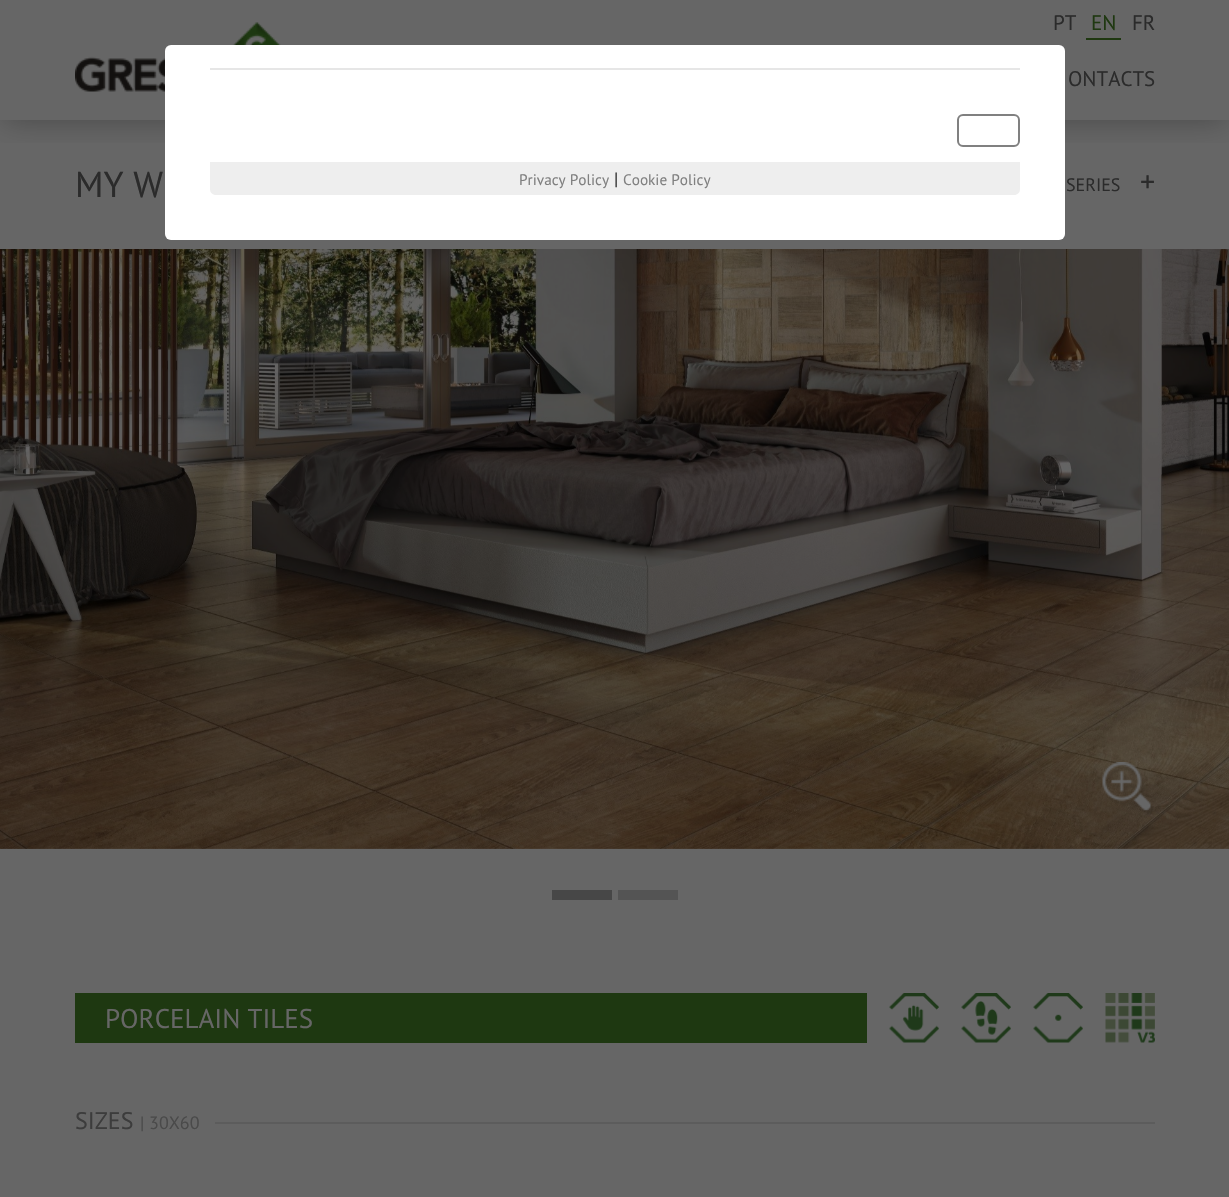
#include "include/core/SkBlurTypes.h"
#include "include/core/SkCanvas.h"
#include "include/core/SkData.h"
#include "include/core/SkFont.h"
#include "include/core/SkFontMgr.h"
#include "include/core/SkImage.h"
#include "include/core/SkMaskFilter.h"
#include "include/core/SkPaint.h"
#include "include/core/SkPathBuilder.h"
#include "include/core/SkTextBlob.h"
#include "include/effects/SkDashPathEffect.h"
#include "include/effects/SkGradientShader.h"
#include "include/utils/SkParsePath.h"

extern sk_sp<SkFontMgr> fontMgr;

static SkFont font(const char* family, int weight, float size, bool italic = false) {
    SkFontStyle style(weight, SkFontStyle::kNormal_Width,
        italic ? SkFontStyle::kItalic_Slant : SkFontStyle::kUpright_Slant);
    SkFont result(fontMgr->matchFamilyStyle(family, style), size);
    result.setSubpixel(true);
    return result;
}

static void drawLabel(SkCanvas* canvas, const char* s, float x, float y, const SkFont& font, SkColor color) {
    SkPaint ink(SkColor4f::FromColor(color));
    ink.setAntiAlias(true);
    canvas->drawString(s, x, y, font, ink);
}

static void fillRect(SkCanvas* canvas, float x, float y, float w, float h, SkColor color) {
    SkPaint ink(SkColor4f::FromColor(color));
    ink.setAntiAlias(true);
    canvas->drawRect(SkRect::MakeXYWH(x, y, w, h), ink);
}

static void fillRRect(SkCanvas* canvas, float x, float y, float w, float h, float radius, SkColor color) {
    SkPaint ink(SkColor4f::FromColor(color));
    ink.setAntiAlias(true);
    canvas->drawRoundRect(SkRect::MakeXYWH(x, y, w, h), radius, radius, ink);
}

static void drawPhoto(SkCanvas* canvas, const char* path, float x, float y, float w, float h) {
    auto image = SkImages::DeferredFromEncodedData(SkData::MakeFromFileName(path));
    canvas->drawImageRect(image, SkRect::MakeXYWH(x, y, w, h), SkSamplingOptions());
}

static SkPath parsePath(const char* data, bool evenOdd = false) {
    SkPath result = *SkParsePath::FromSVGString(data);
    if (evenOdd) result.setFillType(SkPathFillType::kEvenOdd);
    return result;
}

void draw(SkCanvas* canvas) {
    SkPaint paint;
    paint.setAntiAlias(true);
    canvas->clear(0xFF666666);
    canvas->save();
    canvas->clipRect(SkRect::MakeXYWH(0, 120, 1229, 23));
    paint.setColor(0x4D000000);
    paint.setMaskFilter(SkMaskFilter::MakeBlur(kNormal_SkBlurStyle, 15));
    canvas->drawRect(SkRect::MakeXYWH(3, 6, 1224, 114), paint);
    paint.setMaskFilter(nullptr);
    canvas->restore();
    drawPhoto(canvas, "assets/img1.png", 75, 22, 206, 70);
    SkFont font1 = font("PT Sans", 400, 21);
    drawLabel(canvas, "PT", 1053, 30, font1, 0xFF2B2B2B);
    fillRect(canvas, 1086, 38, 35, 2, 0xFF1F3811);
    drawLabel(canvas, "EN", 1091, 30, font1, 0xFF1F3811);
    drawLabel(canvas, "FR", 1132, 30, font1, 0xFF2B2B2B);
    drawLabel(canvas, "ONTACTS", 1068, 86, font1, 0xFF2B2B2B);
    SkFont font2 = font("PT Sans", 400, 36);
    drawLabel(canvas, "MY W", 75, 197, font2, 0xFF2B2B2B);
    SkFont font3 = font("PT Sans", 400, 18);
    drawLabel(canvas, "SERIES", 1066, 191, font3, 0xFF2B2B2B);
    SkFont font4 = font("PT Sans", 400, 30);
    drawLabel(canvas, "+", 1140, 192, font4, 0xFF2B2B2B);
    fillRRect(canvas, 165, 45, 900, 195, 6, 0xFFFFFFFF);
    fillRect(canvas, 210, 68, 810, 2, 0xFFE6E6E6);
    paint.setStroke(true);
    paint.setStrokeWidth(2);
    paint.setColor(0xFF808080);
    canvas->drawRoundRect(SkRect::MakeXYWH(958, 115, 61, 31), 5, 5, paint);
    paint.setStroke(false);
    paint.setColor(0xFFEEEEEE);
    canvas->drawPath(parsePath("M210 162H1020V189C1020 192.5 1017.5 195 1014 195H216C212.5 195 210 192.5 210 189Z"), paint);
    SkFont font5 = font("PT Sans", 400, 15.25f);
    drawLabel(canvas, "Privacy Policy", 519, 185, font5, 0xFF808080);
    drawLabel(canvas, "|", 614, 185, font3, 0xFF333333);
    drawLabel(canvas, "Cookie Policy", 623, 185, font5, 0xFF808080);
    drawPhoto(canvas, "assets/img2.png", 0, 249, 1229, 600);
    drawPhoto(canvas, "assets/img3.png", 1102, 762, 52, 53);
    fillRect(canvas, 552, 890, 60, 10, 0xFF474747);
    fillRect(canvas, 618, 890, 60, 10, 0xFF545454);
    fillRect(canvas, 75, 993, 792, 50, 0xFF1E3811);
    SkFont font6 = font("PT Sans", 400, 27);
    drawLabel(canvas, "PORCELAIN TILES", 105, 1028, font6, 0xFF666666);
    drawPhoto(canvas, "assets/img4.png", 889, 993, 50, 50);
    drawPhoto(canvas, "assets/img5.png", 961, 993, 50, 50);
    drawPhoto(canvas, "assets/img6.png", 1033, 993, 50, 50);
    drawPhoto(canvas, "assets/img7.png", 1105, 993, 50, 50);
    SkFont font7 = font("PT Sans", 400, 24);
    drawLabel(canvas, "SIZES", 75, 1129, font7, 0xFF3C3C3C);
    drawLabel(canvas, "| 30X60", 140, 1129, font3, 0xFF4A4A4A);
    fillRect(canvas, 215, 1122, 940, 2, 0xFF5C5C5C);
}
